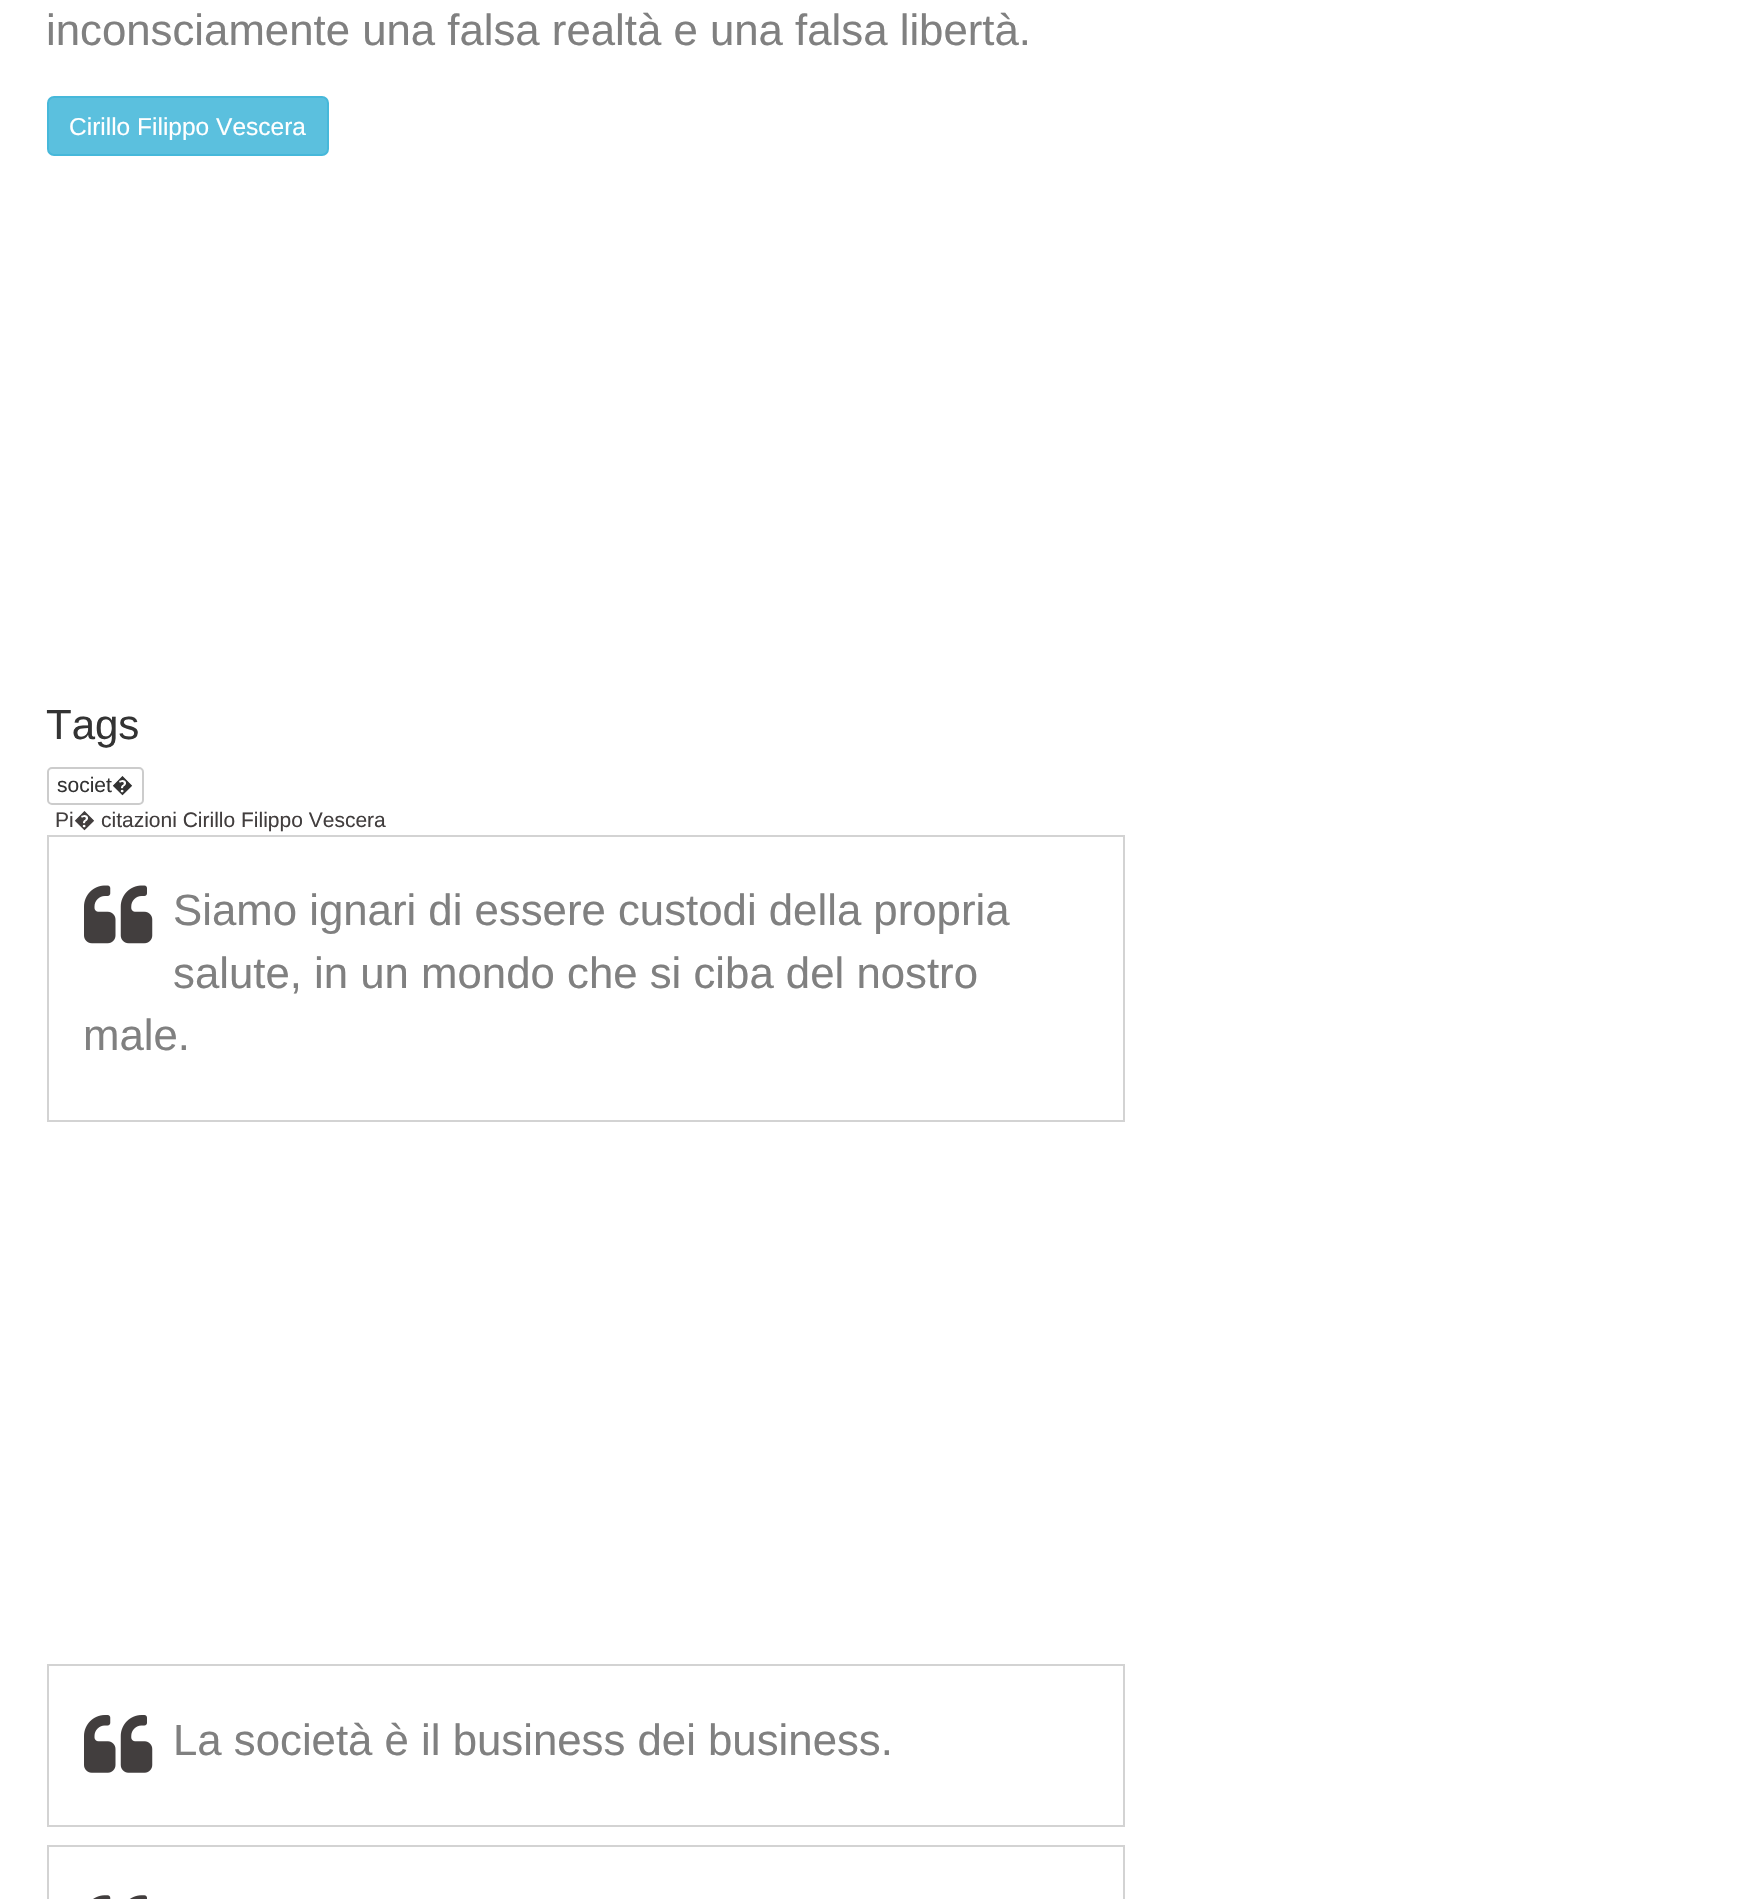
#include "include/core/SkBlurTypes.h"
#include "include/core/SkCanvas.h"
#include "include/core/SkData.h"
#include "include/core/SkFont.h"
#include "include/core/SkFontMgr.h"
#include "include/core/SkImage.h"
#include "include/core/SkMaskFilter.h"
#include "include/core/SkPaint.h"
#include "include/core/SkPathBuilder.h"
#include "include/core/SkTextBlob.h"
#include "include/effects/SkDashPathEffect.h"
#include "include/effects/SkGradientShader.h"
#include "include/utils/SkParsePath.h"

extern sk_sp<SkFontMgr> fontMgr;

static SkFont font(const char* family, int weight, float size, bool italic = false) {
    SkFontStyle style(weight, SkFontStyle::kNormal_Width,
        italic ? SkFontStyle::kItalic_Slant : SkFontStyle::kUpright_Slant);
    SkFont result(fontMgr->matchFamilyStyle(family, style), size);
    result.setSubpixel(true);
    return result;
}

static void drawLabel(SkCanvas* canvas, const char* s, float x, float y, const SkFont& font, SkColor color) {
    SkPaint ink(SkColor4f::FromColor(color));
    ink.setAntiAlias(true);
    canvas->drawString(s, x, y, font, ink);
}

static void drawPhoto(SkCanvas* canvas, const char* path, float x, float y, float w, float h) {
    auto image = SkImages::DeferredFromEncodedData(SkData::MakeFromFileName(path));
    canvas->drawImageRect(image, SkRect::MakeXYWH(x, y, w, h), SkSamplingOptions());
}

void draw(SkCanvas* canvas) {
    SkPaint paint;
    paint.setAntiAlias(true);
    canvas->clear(0xFFFFFFFF);
    SkFont font1 = font("Liberation Sans", 400, 43.75f);
    drawLabel(canvas, "inconsciamente una falsa realtà e una falsa libertà.", 46, 45, font1, 0xFF808080);
    paint.setColor(0xFF5BC0DE);
    canvas->drawRoundRect(SkRect::MakeXYWH(48, 97, 280, 58), 6, 6, paint);
    paint.setStroke(true);
    paint.setStrokeWidth(2);
    paint.setColor(0xFF46B8DA);
    canvas->drawRoundRect(SkRect::MakeXYWH(48, 97, 280, 58), 6, 6, paint);
    SkFont font2 = font("Liberation Sans", 400, 24.5f);
    drawLabel(canvas, "Cirillo Filippo Vescera", 69, 135, font2, 0xFFFFFFFF);
    SkFont font3 = font("Liberation Sans", 400, 42);
    drawLabel(canvas, "Tags", 46, 739, font3, 0xFF333333);
    paint.setColor(0xFFCCCCCC);
    canvas->drawRoundRect(SkRect::MakeXYWH(48, 768, 95, 36), 4, 4, paint);
    SkFont font4 = font("Liberation Sans", 400, 21);
    drawLabel(canvas, "societ", 57, 792, font4, 0xFF333333);
    SkFont font5 = font("Noto Sans", 400, 21);
    drawLabel(canvas, "�", 112, 792, font5, 0xFF333333);
    drawLabel(canvas, "Pi", 55, 827, font4, 0xFF423E3E);
    SkFont font6 = font("Noto Sans", 500, 21);
    drawLabel(canvas, "�", 74, 827, font6, 0xFF423E3E);
    drawLabel(canvas, "citazioni Cirillo Filippo Vescera", 101, 827, font4, 0xFF423E3E);
    paint.setColor(0xFFD3D3D3);
    canvas->drawRect(SkRect::MakeXYWH(48, 836, 1076, 285), paint);
    drawPhoto(canvas, "assets/img1.png", 84, 885, 69, 59);
    drawLabel(canvas, "Siamo ignari di essere custodi della propria", 173, 925, font1, 0xFF808080);
    drawLabel(canvas, "salute, in un mondo che si ciba del nostro", 173, 988, font1, 0xFF808080);
    drawLabel(canvas, "male.", 83, 1050, font1, 0xFF808080);
    canvas->drawRect(SkRect::MakeXYWH(48, 1665, 1076, 161), paint);
    drawPhoto(canvas, "assets/img2.png", 84, 1715, 69, 58);
    drawLabel(canvas, "La società è il business dei business.", 173, 1755, font1, 0xFF808080);
    canvas->drawRect(SkRect::MakeXYWH(48, 1846, 1076, 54), paint);
    drawPhoto(canvas, "assets/img3.png", 93, 1895, 54, 4);
}
